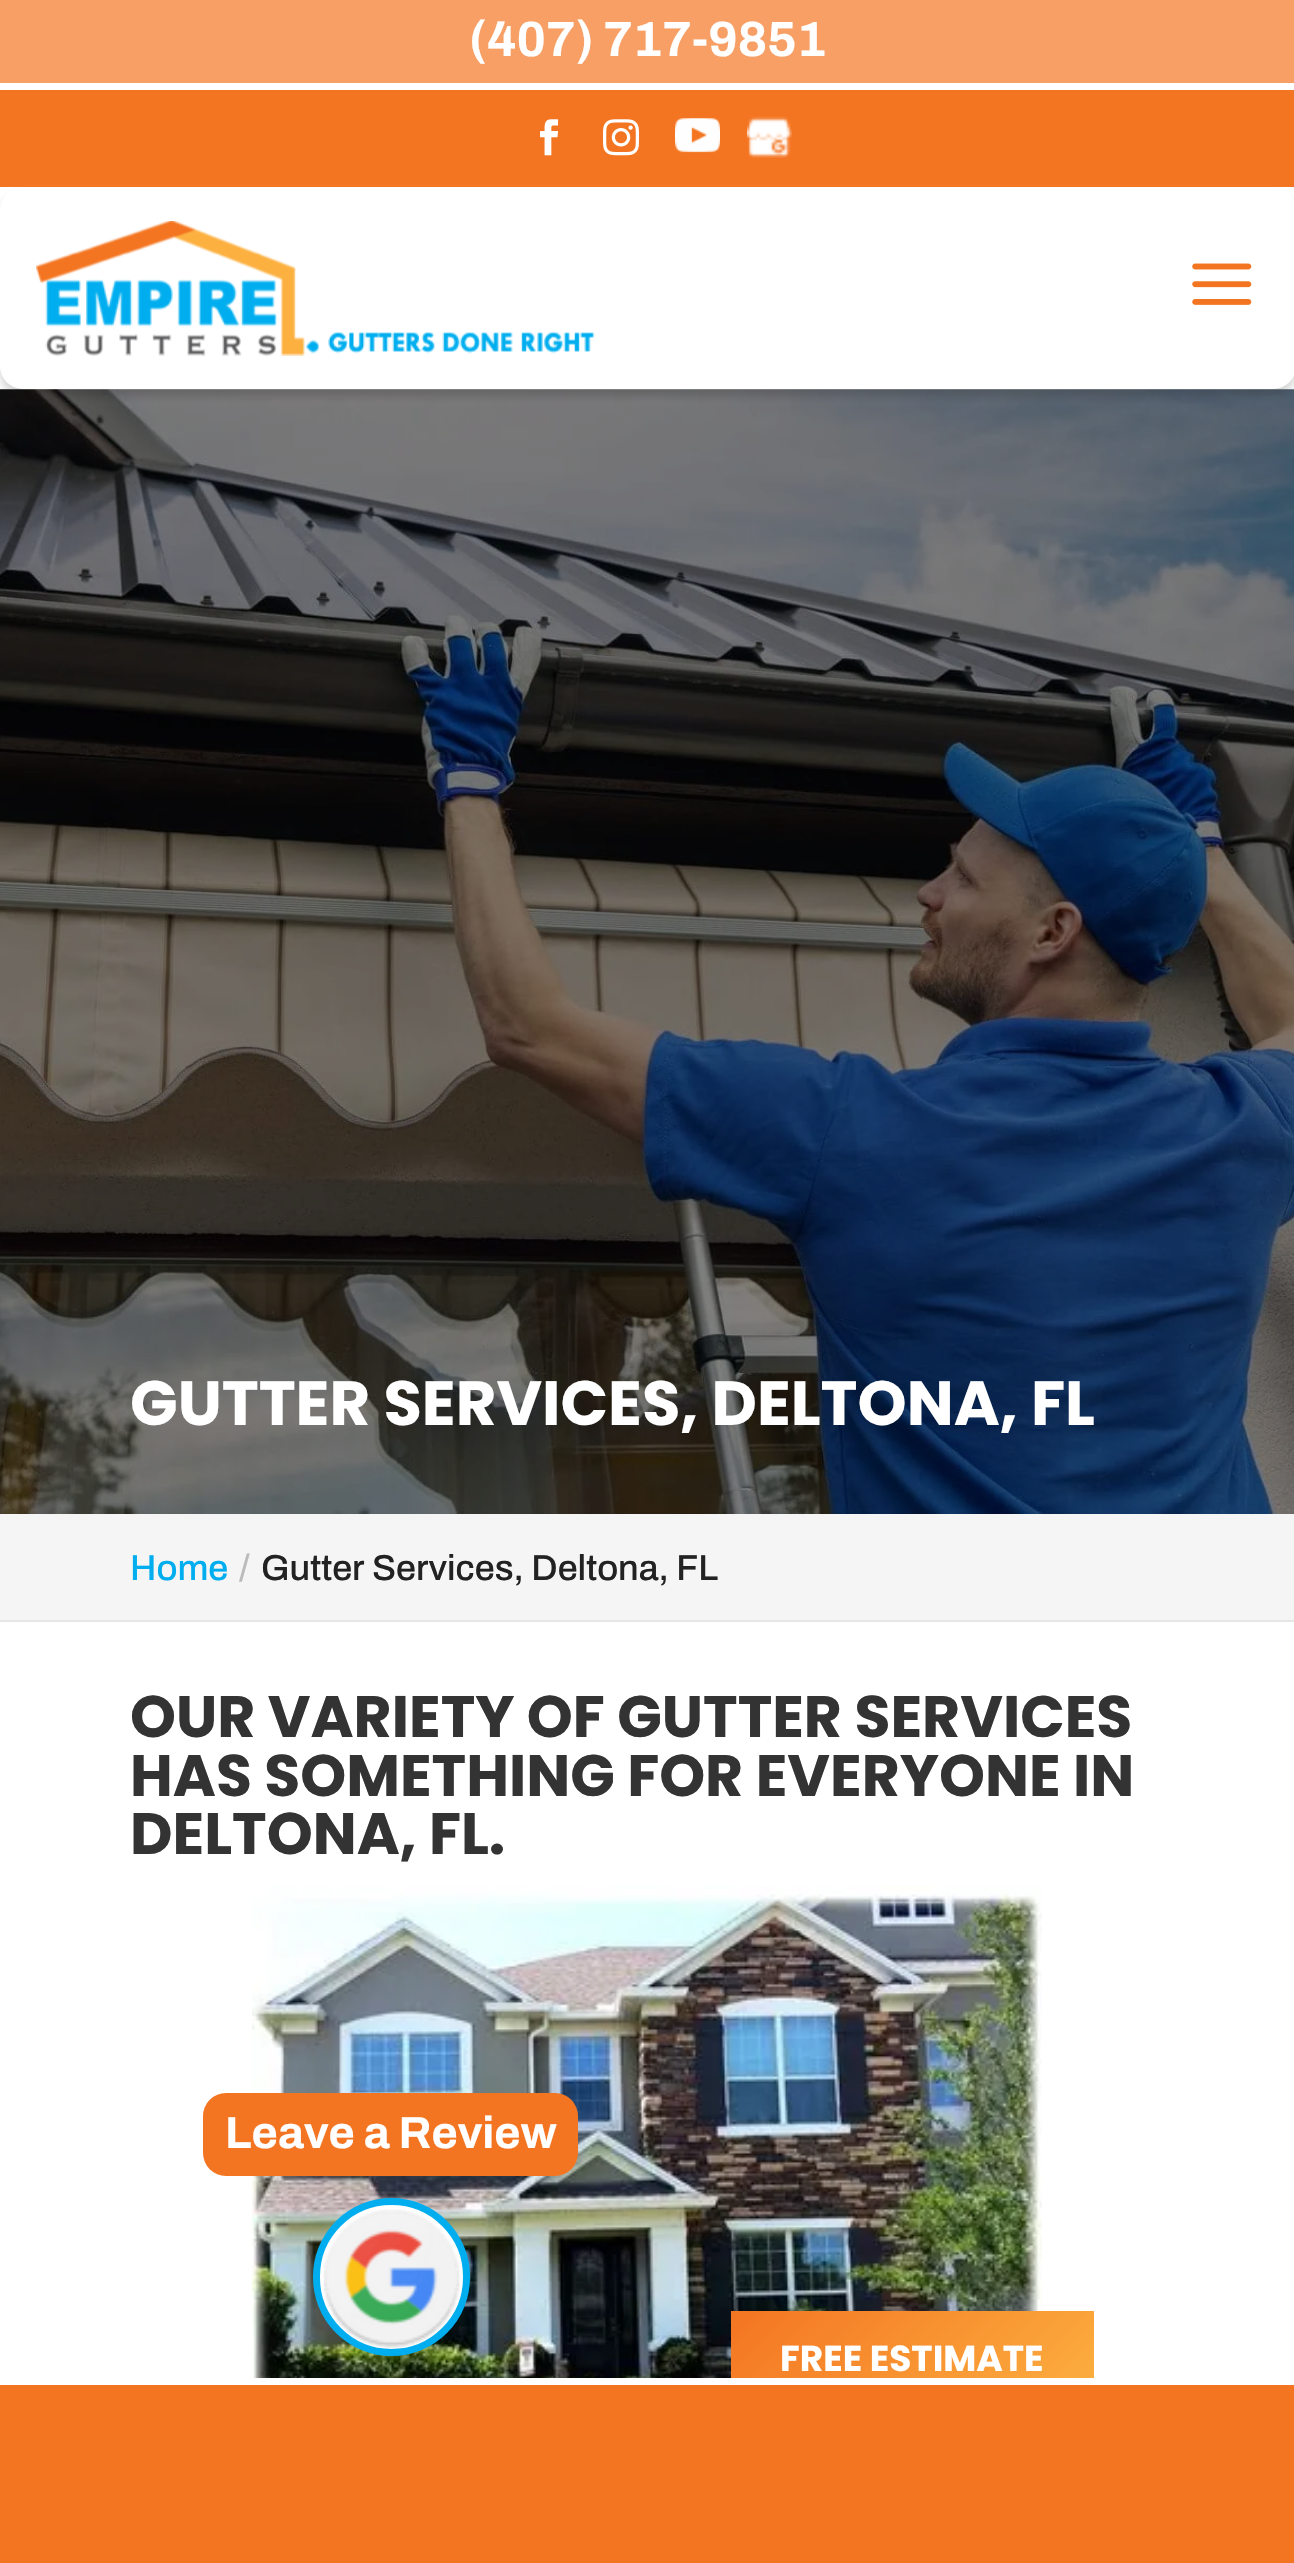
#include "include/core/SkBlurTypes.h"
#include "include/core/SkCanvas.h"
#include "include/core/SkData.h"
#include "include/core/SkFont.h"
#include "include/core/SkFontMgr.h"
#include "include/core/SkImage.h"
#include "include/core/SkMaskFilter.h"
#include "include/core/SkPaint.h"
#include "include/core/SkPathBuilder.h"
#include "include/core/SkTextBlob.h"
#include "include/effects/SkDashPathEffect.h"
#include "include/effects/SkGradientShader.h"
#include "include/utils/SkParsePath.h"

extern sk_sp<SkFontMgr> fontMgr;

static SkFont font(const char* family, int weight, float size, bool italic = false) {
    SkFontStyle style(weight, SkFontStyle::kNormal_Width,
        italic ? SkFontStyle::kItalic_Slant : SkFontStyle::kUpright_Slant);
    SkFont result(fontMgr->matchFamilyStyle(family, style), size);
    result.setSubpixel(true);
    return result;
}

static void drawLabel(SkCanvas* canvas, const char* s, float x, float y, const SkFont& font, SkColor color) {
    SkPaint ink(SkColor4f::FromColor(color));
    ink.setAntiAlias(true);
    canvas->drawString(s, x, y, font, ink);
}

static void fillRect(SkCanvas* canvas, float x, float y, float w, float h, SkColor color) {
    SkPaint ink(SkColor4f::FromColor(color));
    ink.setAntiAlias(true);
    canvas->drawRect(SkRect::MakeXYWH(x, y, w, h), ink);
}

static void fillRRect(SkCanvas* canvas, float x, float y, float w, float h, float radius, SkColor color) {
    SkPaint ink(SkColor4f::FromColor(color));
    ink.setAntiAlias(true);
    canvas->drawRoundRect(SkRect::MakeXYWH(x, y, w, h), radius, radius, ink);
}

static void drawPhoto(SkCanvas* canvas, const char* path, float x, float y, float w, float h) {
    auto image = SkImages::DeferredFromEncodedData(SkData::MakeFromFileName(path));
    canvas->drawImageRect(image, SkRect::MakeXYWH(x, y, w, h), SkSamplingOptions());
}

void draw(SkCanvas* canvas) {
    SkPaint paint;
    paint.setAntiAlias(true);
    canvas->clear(0xFFFFFFFF);
    fillRect(canvas, 0, 0, 1294, 83, 0xFFF79F64);
    SkFont font1 = font("Archivo", 700, 49.5f);
    drawLabel(canvas, "(407) 717-9851", 469, 56, font1, 0xFFFFFFFF);
    drawPhoto(canvas, "assets/img2.png", 252, 1886, 790, 492);
    {
        const SkColor colors[] = {0xFFF47522, 0xFFFCB040};
        const float stops[] = {0, 1};
        const SkPoint ends[] = {{798, 2244}, {1027, 2474}};
        paint.setShader(SkGradientShader::MakeLinear(ends, colors, stops, 2, SkTileMode::kClamp));
        paint.setAlpha(255);
    }
    canvas->drawRect(SkRect::MakeXYWH(731, 2311, 363, 67), paint);
    SkFont font2 = font("Poppins", 700, 36);
    drawLabel(canvas, "FREE ESTIMATE", 780, 2371, font2, 0xFFFFFFFF);
    fillRect(canvas, 0, 2385, 1294, 178, 0xFFF47521);
    drawPhoto(canvas, "assets/img1.png", 0, 389, 1294, 1125);
    SkFont font3 = font("Poppins", 700, 62.5f);
    drawLabel(canvas, "GUTTER SERVICES, DELTONA, FL", 130, 1425, font3, 0xFFFFFFFF);
    fillRect(canvas, 0, 1620, 1294, 2, 0xFFE6E6E6);
    fillRect(canvas, 0, 1514, 1294, 106, 0xFFF5F5F5);
    SkFont font4 = font("Archivo", 500, 36);
    drawLabel(canvas, "Home", 130, 1580, font4, 0xFF00AEF0);
    drawLabel(canvas, "/", 239, 1580, font4, 0xFFBBBBBB);
    drawLabel(canvas, "Gutter Services, Deltona, FL", 261, 1580, font4, 0xFF222222);
    SkFont font5 = font("Poppins", 700, 58.5f);
    drawLabel(canvas, "OUR VARIETY OF GUTTER SERVICES", 130, 1737, font5, 0xFF333333);
    drawLabel(canvas, "HAS SOMETHING FOR EVERYONE IN", 130, 1796, font5, 0xFF333333);
    drawLabel(canvas, "DELTONA, FL.", 130, 1854, font5, 0xFF333333);
    fillRect(canvas, 0, 90, 1294, 97, 0xFFF47521);
    drawPhoto(canvas, "assets/img3.png", 540, 119, 19, 37);
    drawPhoto(canvas, "assets/img4.png", 603, 119, 36, 37);
    drawPhoto(canvas, "assets/img5.png", 675, 118, 45, 35);
    drawPhoto(canvas, "assets/img6.png", 747, 116, 45, 42);
    paint.setShader(nullptr);
    paint.setColor(0x2E111111);
    paint.setMaskFilter(SkMaskFilter::MakeBlur(kNormal_SkBlurStyle, 4.5f));
    canvas->drawRoundRect(SkRect::MakeXYWH(0, 194, 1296, 202), 23, 23, paint);
    paint.setMaskFilter(nullptr);
    fillRRect(canvas, 0, 187, 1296, 202, 23, 0xFFFFFFFF);
    drawPhoto(canvas, "assets/img7.png", 36, 221, 559, 135);
    drawPhoto(canvas, "assets/img8.png", 1192, 263, 60, 42);
    fillRRect(canvas, 203, 2093, 375, 83, 23, 0xFFF47521);
    SkFont font6 = font("Archivo", 700, 45);
    drawLabel(canvas, "Leave a Review", 225, 2148, font6, 0xFFFFFFFF);
    paint.setColor(0xFFFFFFFF);
    canvas->drawRoundRect(SkRect::MakeXYWH(316.5f, 2201.5f, 150, 151), 75, 75, paint);
    paint.setStroke(true);
    paint.setStrokeWidth(7);
    paint.setColor(0xFF00AEF0);
    canvas->drawRoundRect(SkRect::MakeXYWH(316.5f, 2201.5f, 150, 151), 75, 75, paint);
    drawPhoto(canvas, "assets/img9.png", 323, 2209, 137, 140);
}
